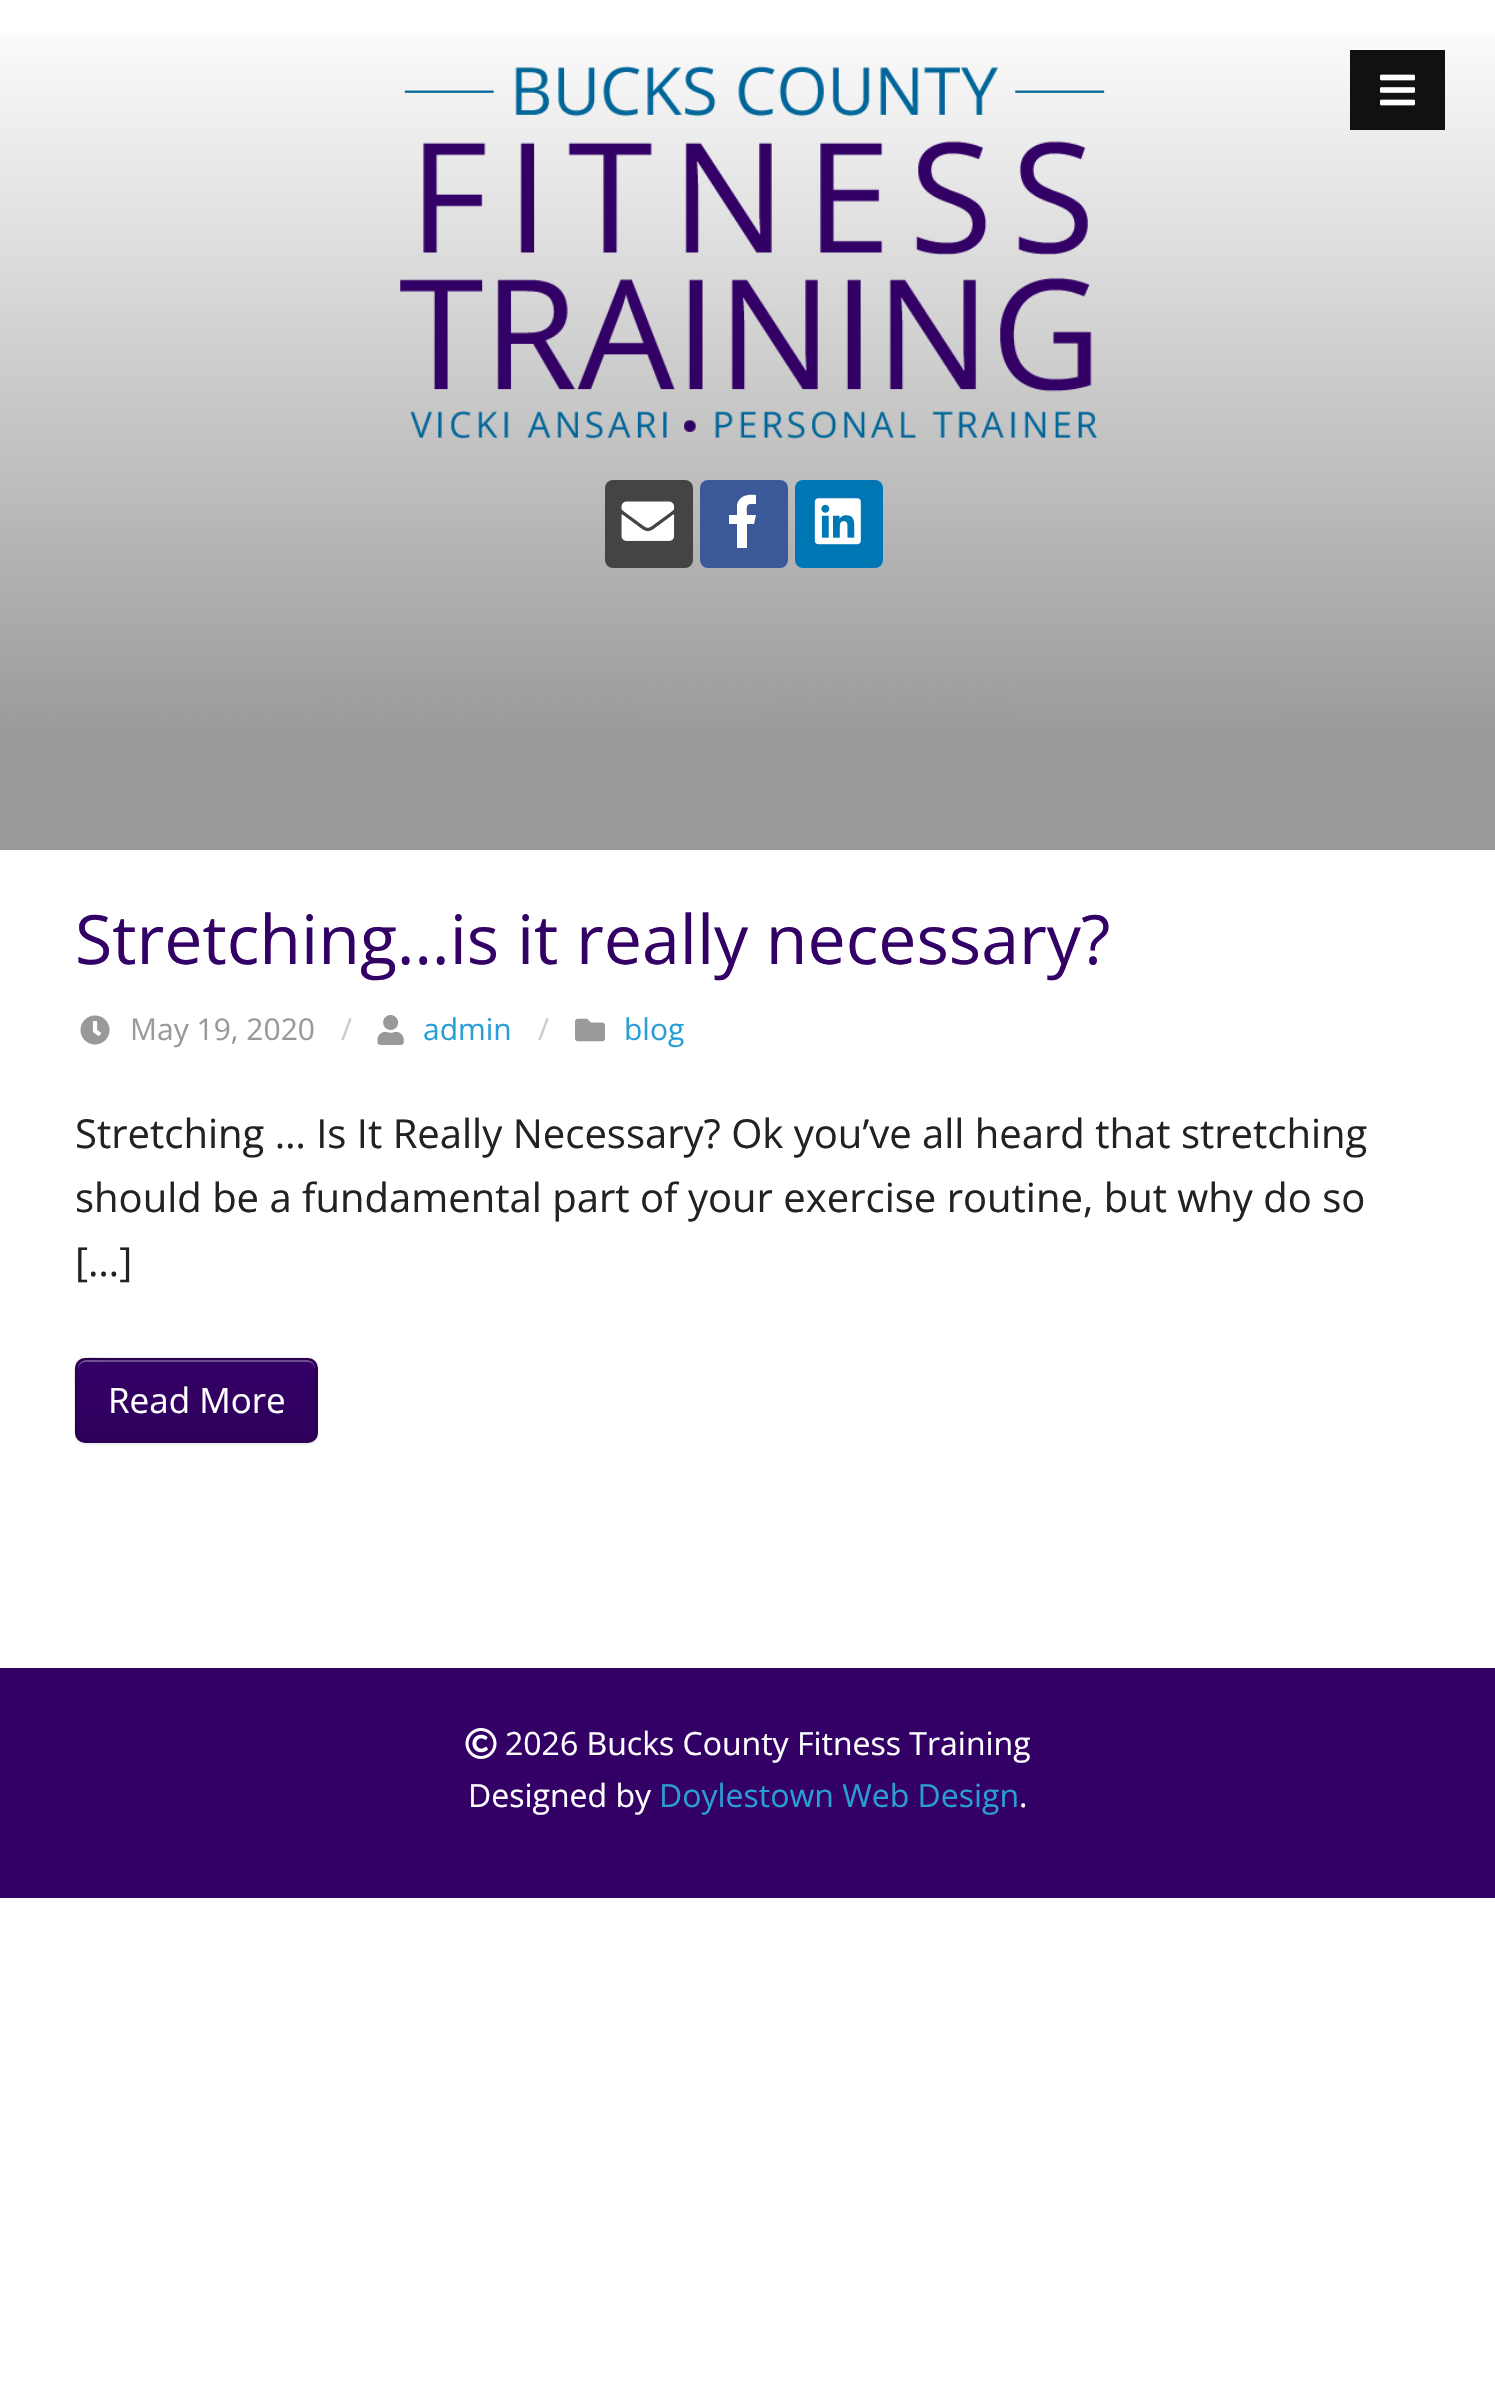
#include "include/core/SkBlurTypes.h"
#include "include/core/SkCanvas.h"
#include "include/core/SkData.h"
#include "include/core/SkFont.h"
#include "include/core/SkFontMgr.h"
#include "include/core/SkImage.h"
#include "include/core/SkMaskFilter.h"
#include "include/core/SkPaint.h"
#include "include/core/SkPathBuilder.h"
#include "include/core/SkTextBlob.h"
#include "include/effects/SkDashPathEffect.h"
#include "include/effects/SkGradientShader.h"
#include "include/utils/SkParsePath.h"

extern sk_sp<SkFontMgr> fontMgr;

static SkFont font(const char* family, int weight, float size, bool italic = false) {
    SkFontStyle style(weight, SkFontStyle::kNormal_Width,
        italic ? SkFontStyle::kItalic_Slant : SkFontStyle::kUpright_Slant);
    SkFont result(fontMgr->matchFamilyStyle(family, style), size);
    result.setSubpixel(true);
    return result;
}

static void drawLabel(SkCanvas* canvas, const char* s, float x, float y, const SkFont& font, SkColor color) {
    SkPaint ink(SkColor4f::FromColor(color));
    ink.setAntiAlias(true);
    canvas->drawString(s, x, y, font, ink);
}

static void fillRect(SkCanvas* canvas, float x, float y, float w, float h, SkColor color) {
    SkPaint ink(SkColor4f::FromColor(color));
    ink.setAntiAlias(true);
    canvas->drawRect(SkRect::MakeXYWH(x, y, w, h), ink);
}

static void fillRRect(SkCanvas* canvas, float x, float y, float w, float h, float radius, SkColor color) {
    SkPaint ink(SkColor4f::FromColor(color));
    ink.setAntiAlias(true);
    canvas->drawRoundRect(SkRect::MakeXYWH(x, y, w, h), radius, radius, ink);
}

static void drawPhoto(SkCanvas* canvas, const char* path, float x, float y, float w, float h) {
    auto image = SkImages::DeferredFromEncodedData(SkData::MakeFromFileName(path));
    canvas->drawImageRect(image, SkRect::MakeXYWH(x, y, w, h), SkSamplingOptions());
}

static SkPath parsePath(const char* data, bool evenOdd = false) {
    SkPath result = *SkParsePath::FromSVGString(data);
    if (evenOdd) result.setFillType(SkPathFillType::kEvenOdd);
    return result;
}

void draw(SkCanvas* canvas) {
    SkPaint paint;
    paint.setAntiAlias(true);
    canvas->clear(0xFFFFFFFF);
    drawPhoto(canvas, "assets/img1.png", 0, 35, 1495, 815);
    drawPhoto(canvas, "assets/img2.png", 400, 66, 705, 373);
    fillRRect(canvas, 605, 480, 88, 88, 8, 0xFF444444);
    drawPhoto(canvas, "assets/img3.png", 621, 501, 54, 40);
    fillRRect(canvas, 700, 480, 88, 88, 8, 0xFF3B5998);
    paint.setColor(0xFFFFFFFF);
    canvas->drawPath(parsePath("M751 504H756V495C749 494 739 495 737 505V515H729V524H737V548H747V524H754L756 515H747C747 510 745 504 751 504Z"), paint);
    fillRRect(canvas, 795, 480, 88, 88, 8, 0xFF0077B5);
    drawPhoto(canvas, "assets/img4.png", 814, 498, 47, 47);
    fillRect(canvas, 1350, 50, 95, 80, 0xFF111111);
    drawPhoto(canvas, "assets/img5.png", 1380, 74, 35, 32);
    SkFont font1 = font("Open Sans", 400, 68);
    drawLabel(canvas, "Stretching…is it really necessary?", 75, 964, font1, 0xFF330066);
    drawPhoto(canvas, "assets/img6.png", 80, 1015, 30, 30);
    SkFont font2 = font("Open Sans", 400, 30);
    drawLabel(canvas, "May 19, 2020", 130, 1040, font2, 0xFF999999);
    drawLabel(canvas, "/", 341, 1040, font2, 0xFFCCCCCC);
    drawPhoto(canvas, "assets/img7.png", 377, 1015, 27, 30);
    drawLabel(canvas, "admin", 423, 1040, font2, 0xFF2A9ED4);
    drawLabel(canvas, "/", 538, 1040, font2, 0xFFCCCCCC);
    drawPhoto(canvas, "assets/img8.png", 575, 1018, 30, 24);
    drawLabel(canvas, "blog", 624, 1040, font2, 0xFF2A9ED4);
    SkFont font3 = font("Open Sans", 400, 40);
    drawLabel(canvas, "Stretching … Is It Really Necessary? Ok you’ve all heard that stretching", 75, 1148, font3, 0xFF222222);
    drawLabel(canvas, "should be a fundamental part of your exercise routine, but why do so", 75, 1212, font3, 0xFF222222);
    drawLabel(canvas, "[…]", 75, 1276, font3, 0xFF222222);
    paint.setColor(0x12000000);
    paint.setMaskFilter(SkMaskFilter::MakeBlur(kNormal_SkBlurStyle, 1));
    canvas->drawRoundRect(SkRect::MakeXYWH(75, 1360, 243, 85), 10, 10, paint);
    paint.setMaskFilter(nullptr);
    fillRRect(canvas, 75, 1358, 243, 85, 10, 0xFF330066);
    canvas->save();
    canvas->clipPath(parsePath("M85 1358H308C313.5 1358 318 1362.5 318 1368V1433C318 1438.5 313.5 1443 308 1443H85C79.5 1443 75 1438.5 75 1433V1368C75 1362.5 79.5 1358 85 1358Z"), true);
    {
        const SkColor colors[] = {0x00000000, 0x17000000};
        const float stops[] = {0, 1};
        const SkPoint ends[] = {{196, 1280}, {196, 1360}};
        paint.setShader(SkGradientShader::MakeLinear(ends, colors, stops, 2, SkTileMode::kClamp));
        paint.setAlpha(255);
    }
    canvas->drawRect(SkRect::MakeXYWH(75, 1358, 243, 2), paint);
    {
        const SkColor colors[] = {0x00000000, 0x17000000};
        const float stops[] = {0, 1};
        const SkPoint ends[] = {{196, 1360}, {196, 1440}};
        paint.setShader(SkGradientShader::MakeLinear(ends, colors, stops, 2, SkTileMode::kClamp));
        paint.setAlpha(255);
    }
    canvas->drawRect(SkRect::MakeXYWH(75, 1379, 243, 61), paint);
    canvas->restore();
    paint.setShader(nullptr);
    paint.setColor(0xFF704D94);
    canvas->drawPath(parsePath("M85 1362H308C312 1362 315 1366 315 1370V1368C315 1364 311 1360 307 1360H86C82 1360 78 1364 78 1368V1370C78 1366 81 1362 85 1362Z"), paint);
    paint.setStroke(true);
    paint.setStrokeWidth(2.5f);
    paint.setColor(0x33000000);
    canvas->drawPath(parsePath("M313.5 1438.5C312 1440.5 310 1441 307.5 1441H85C82.5 1441 80.5 1440.5 79 1438.5"), paint);
    paint.setColor(0x2B000000);
    canvas->drawPath(parsePath("M79 1438.5C74.5 1434.5 76 1426.5 76 1421.5V1400C76 1350.5 69 1359 122 1359H307.5C318.5 1359 316 1371.5 316 1378.5V1421.5C316 1426.5 318 1434.5 313.5 1438.5"), paint);
    SkFont font4 = font("Open Sans", 400, 35);
    drawLabel(canvas, "Read More", 108, 1413, font4, 0xFFFFFFFF);
    fillRect(canvas, 0, 1668, 1495, 230, 0xFF330066);
    drawPhoto(canvas, "assets/img9.png", 465, 1728, 32, 31);
    SkFont font5 = font("Open Sans", 400, 32);
    drawLabel(canvas, "2026 Bucks County Fitness Training", 505, 1755, font5, 0xFFFFFFFF);
    drawLabel(canvas, "Designed by", 468, 1807, font5, 0xFFFFFFFF);
    drawLabel(canvas, "Doylestown Web Design", 659, 1807, font5, 0xFF2A9ED4);
    drawLabel(canvas, ".", 1019, 1807, font5, 0xFFFFFFFF);
}
